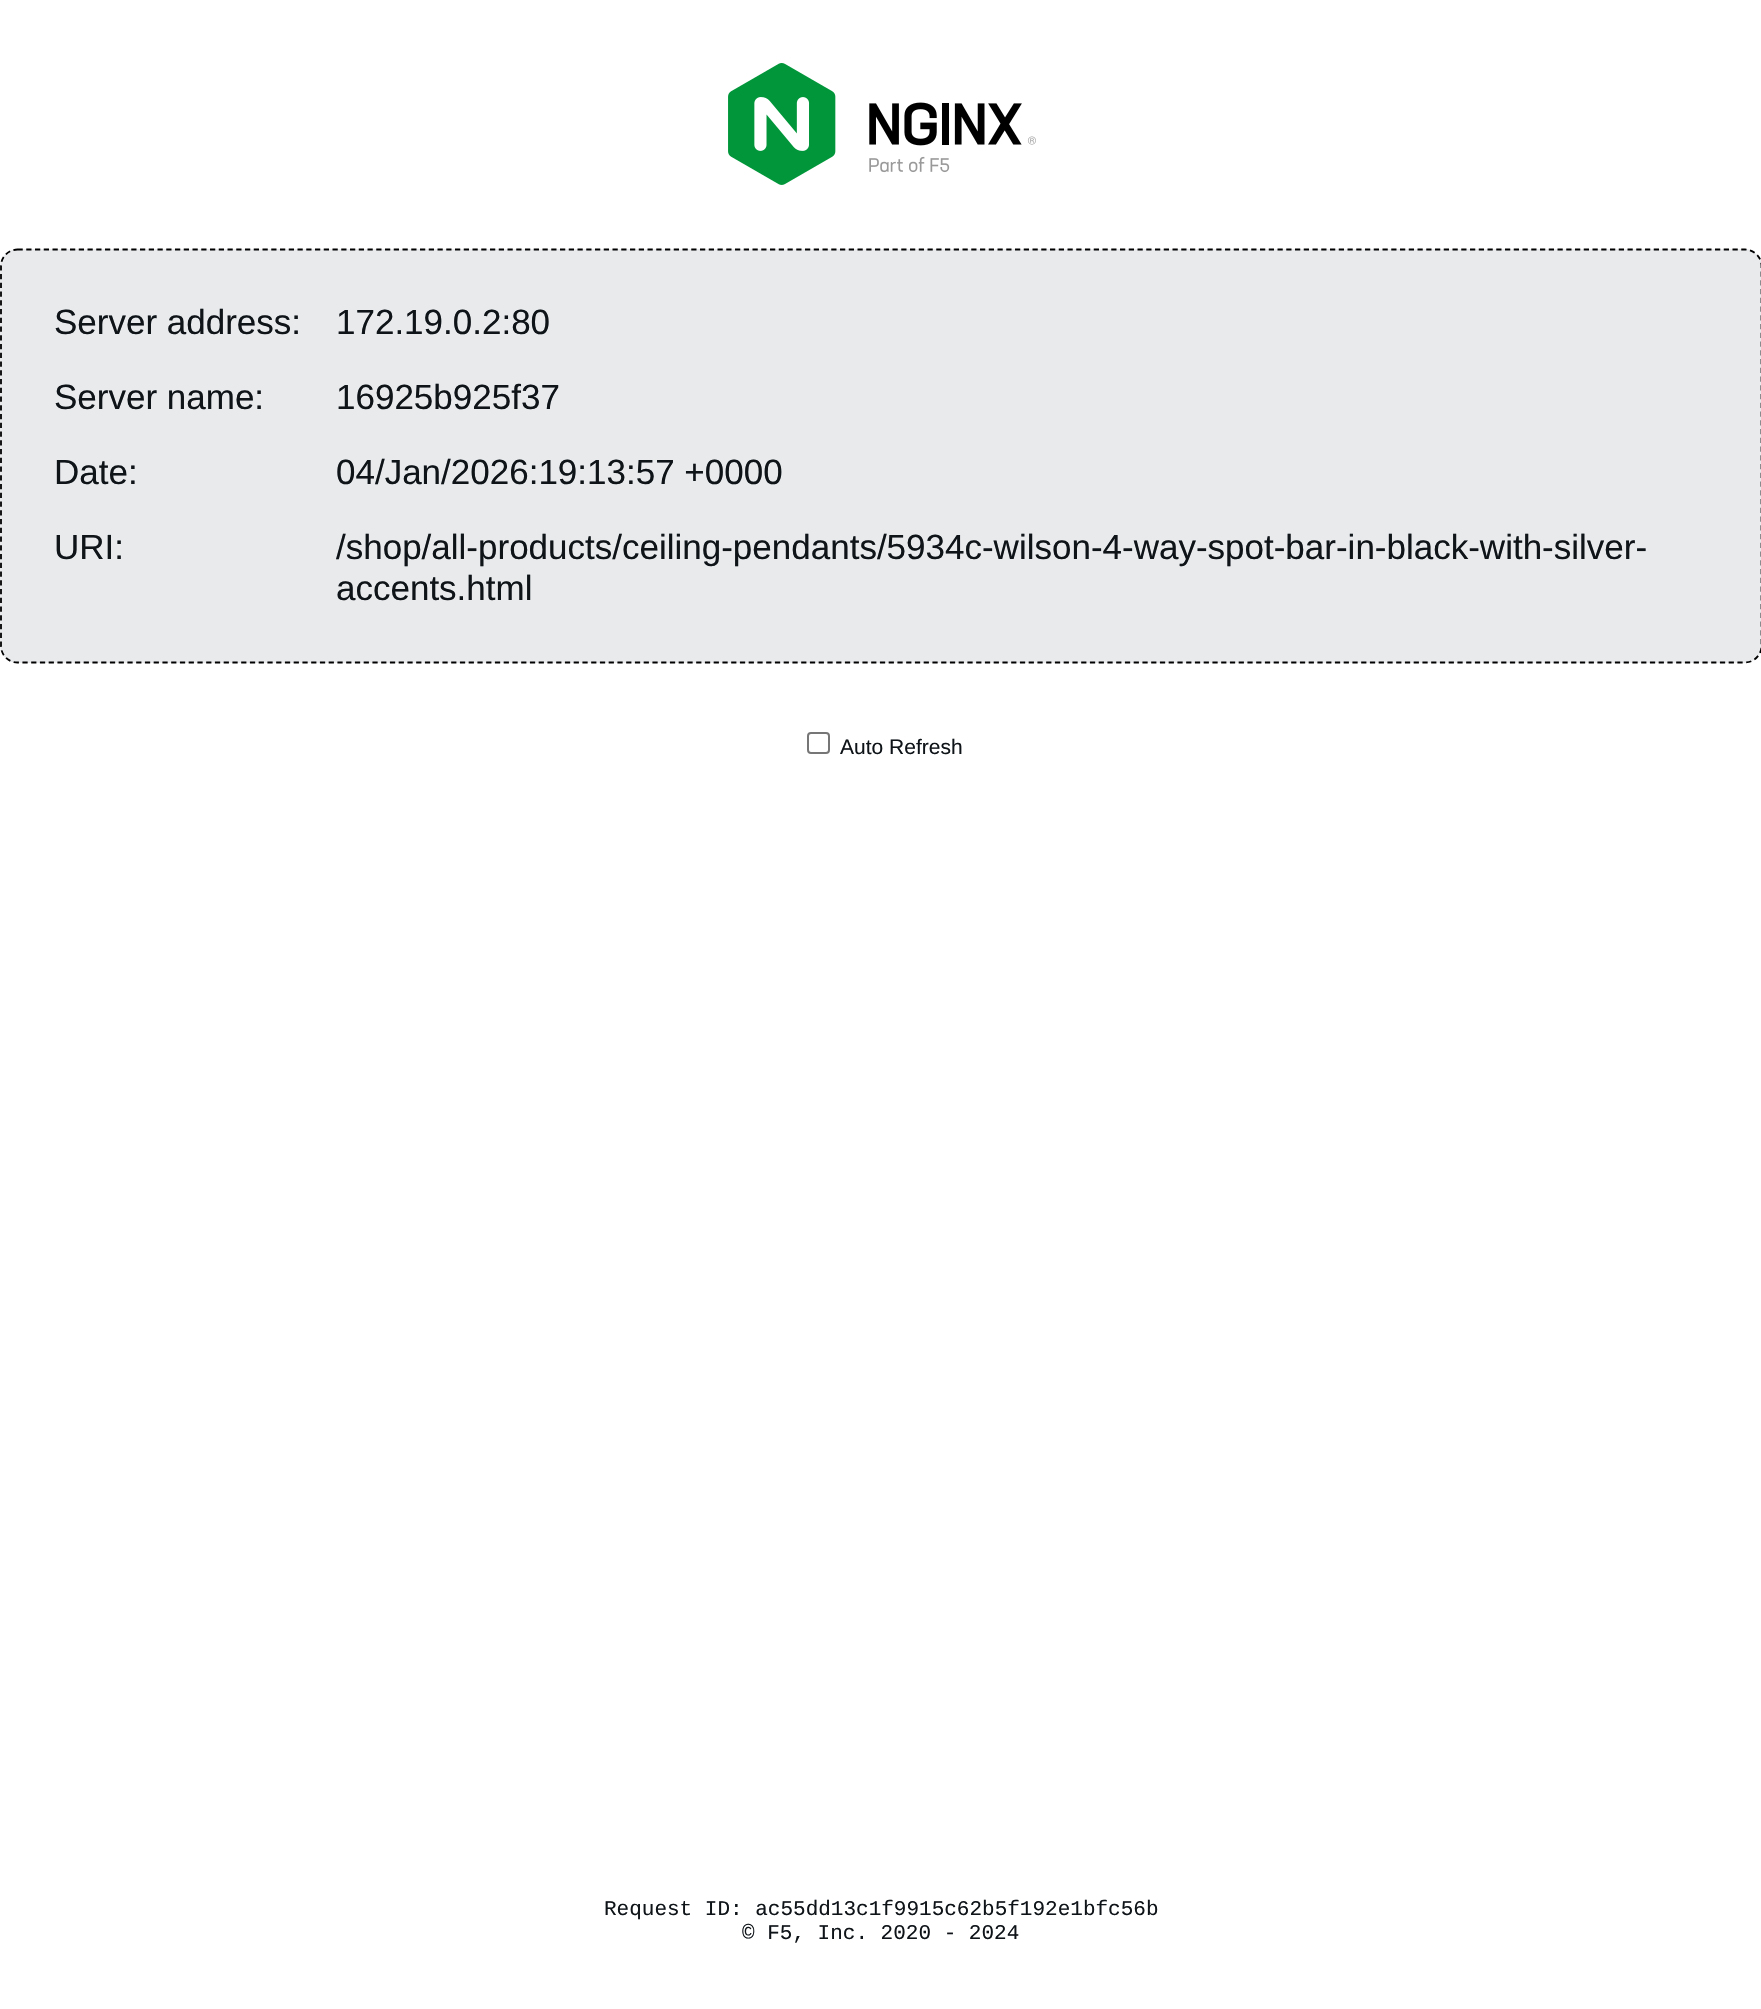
#include "include/core/SkBlurTypes.h"
#include "include/core/SkCanvas.h"
#include "include/core/SkData.h"
#include "include/core/SkFont.h"
#include "include/core/SkFontMgr.h"
#include "include/core/SkImage.h"
#include "include/core/SkMaskFilter.h"
#include "include/core/SkPaint.h"
#include "include/core/SkPathBuilder.h"
#include "include/core/SkTextBlob.h"
#include "include/effects/SkDashPathEffect.h"
#include "include/effects/SkGradientShader.h"
#include "include/utils/SkParsePath.h"

extern sk_sp<SkFontMgr> fontMgr;

static SkFont font(const char* family, int weight, float size, bool italic = false) {
    SkFontStyle style(weight, SkFontStyle::kNormal_Width,
        italic ? SkFontStyle::kItalic_Slant : SkFontStyle::kUpright_Slant);
    SkFont result(fontMgr->matchFamilyStyle(family, style), size);
    result.setSubpixel(true);
    return result;
}

static void drawLabel(SkCanvas* canvas, const char* s, float x, float y, const SkFont& font, SkColor color) {
    SkPaint ink(SkColor4f::FromColor(color));
    ink.setAntiAlias(true);
    canvas->drawString(s, x, y, font, ink);
}

static void fillRRect(SkCanvas* canvas, float x, float y, float w, float h, float radius, SkColor color) {
    SkPaint ink(SkColor4f::FromColor(color));
    ink.setAntiAlias(true);
    canvas->drawRoundRect(SkRect::MakeXYWH(x, y, w, h), radius, radius, ink);
}

static void drawPhoto(SkCanvas* canvas, const char* path, float x, float y, float w, float h) {
    auto image = SkImages::DeferredFromEncodedData(SkData::MakeFromFileName(path));
    canvas->drawImageRect(image, SkRect::MakeXYWH(x, y, w, h), SkSamplingOptions());
}

static SkPath parsePath(const char* data, bool evenOdd = false) {
    SkPath result = *SkParsePath::FromSVGString(data);
    if (evenOdd) result.setFillType(SkPathFillType::kEvenOdd);
    return result;
}

void draw(SkCanvas* canvas) {
    SkPaint paint;
    paint.setAntiAlias(true);
    canvas->clear(0xFFFFFFFF);
    drawPhoto(canvas, "assets/img1.png", 728, 63, 308, 122);
    fillRRect(canvas, 0, 249, 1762, 414, 18, 0xFFE8EAEC);
    paint.setStroke(true);
    paint.setStrokeWidth(1.8f);
    paint.setColor(0xFF000000);
    paint.setPathEffect(SkDashPathEffect::Make({{5.25f, 3.5f}}, 0));
    canvas->drawPath(parsePath("M17.5 249.5H1745C1754 249.5 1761.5 257 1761.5 266V646C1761.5 655 1754 662.5 1745 662.5H17.5C8.5 662.5 1 655 1 646V266C1 257 8.5 249.5 17.5 249.5Z"), paint);
    paint.setPathEffect(nullptr);
    SkFont font1 = font("Liberation Sans", 400, 35);
    drawLabel(canvas, "Server address:", 54, 334, font1, 0xFF0F1419);
    drawLabel(canvas, "172.19.0.2:80", 336, 334, font1, 0xFF0F1419);
    drawLabel(canvas, "Server name:", 54, 409, font1, 0xFF0F1419);
    drawLabel(canvas, "16925b925f37", 336, 409, font1, 0xFF0F1419);
    drawLabel(canvas, "Date:", 54, 484, font1, 0xFF0F1419);
    drawLabel(canvas, "04/Jan/2026:19:13:57 +0000", 336, 484, font1, 0xFF0F1419);
    drawLabel(canvas, "URI:", 54, 559, font1, 0xFF0F1419);
    drawLabel(canvas, "/shop/all-products/ceiling-pendants/5934c-wilson-4-way-spot-bar-in-black-with-silver-", 336, 559, font1, 0xFF0F1419);
    drawLabel(canvas, "accents.html", 336, 600, font1, 0xFF0F1419);
    paint.setStrokeWidth(2);
    paint.setColor(0xFF767676);
    canvas->drawRoundRect(SkRect::MakeXYWH(808, 733, 21, 20), 3, 3, paint);
    SkFont font2 = font("Liberation Sans", 400, 21);
    drawLabel(canvas, "Auto Refresh", 840, 754, font2, 0xFF0F1419);
    SkFont font3 = font("Liberation Mono", 400, 21);
    drawLabel(canvas, "Request ID: ac55dd13c1f9915c62b5f192e1bfc56b", 604, 1915, font3, 0xFF0F1419);
    drawLabel(canvas, "© F5, Inc. 2020 - 2024", 742, 1939, font3, 0xFF0F1419);
}
